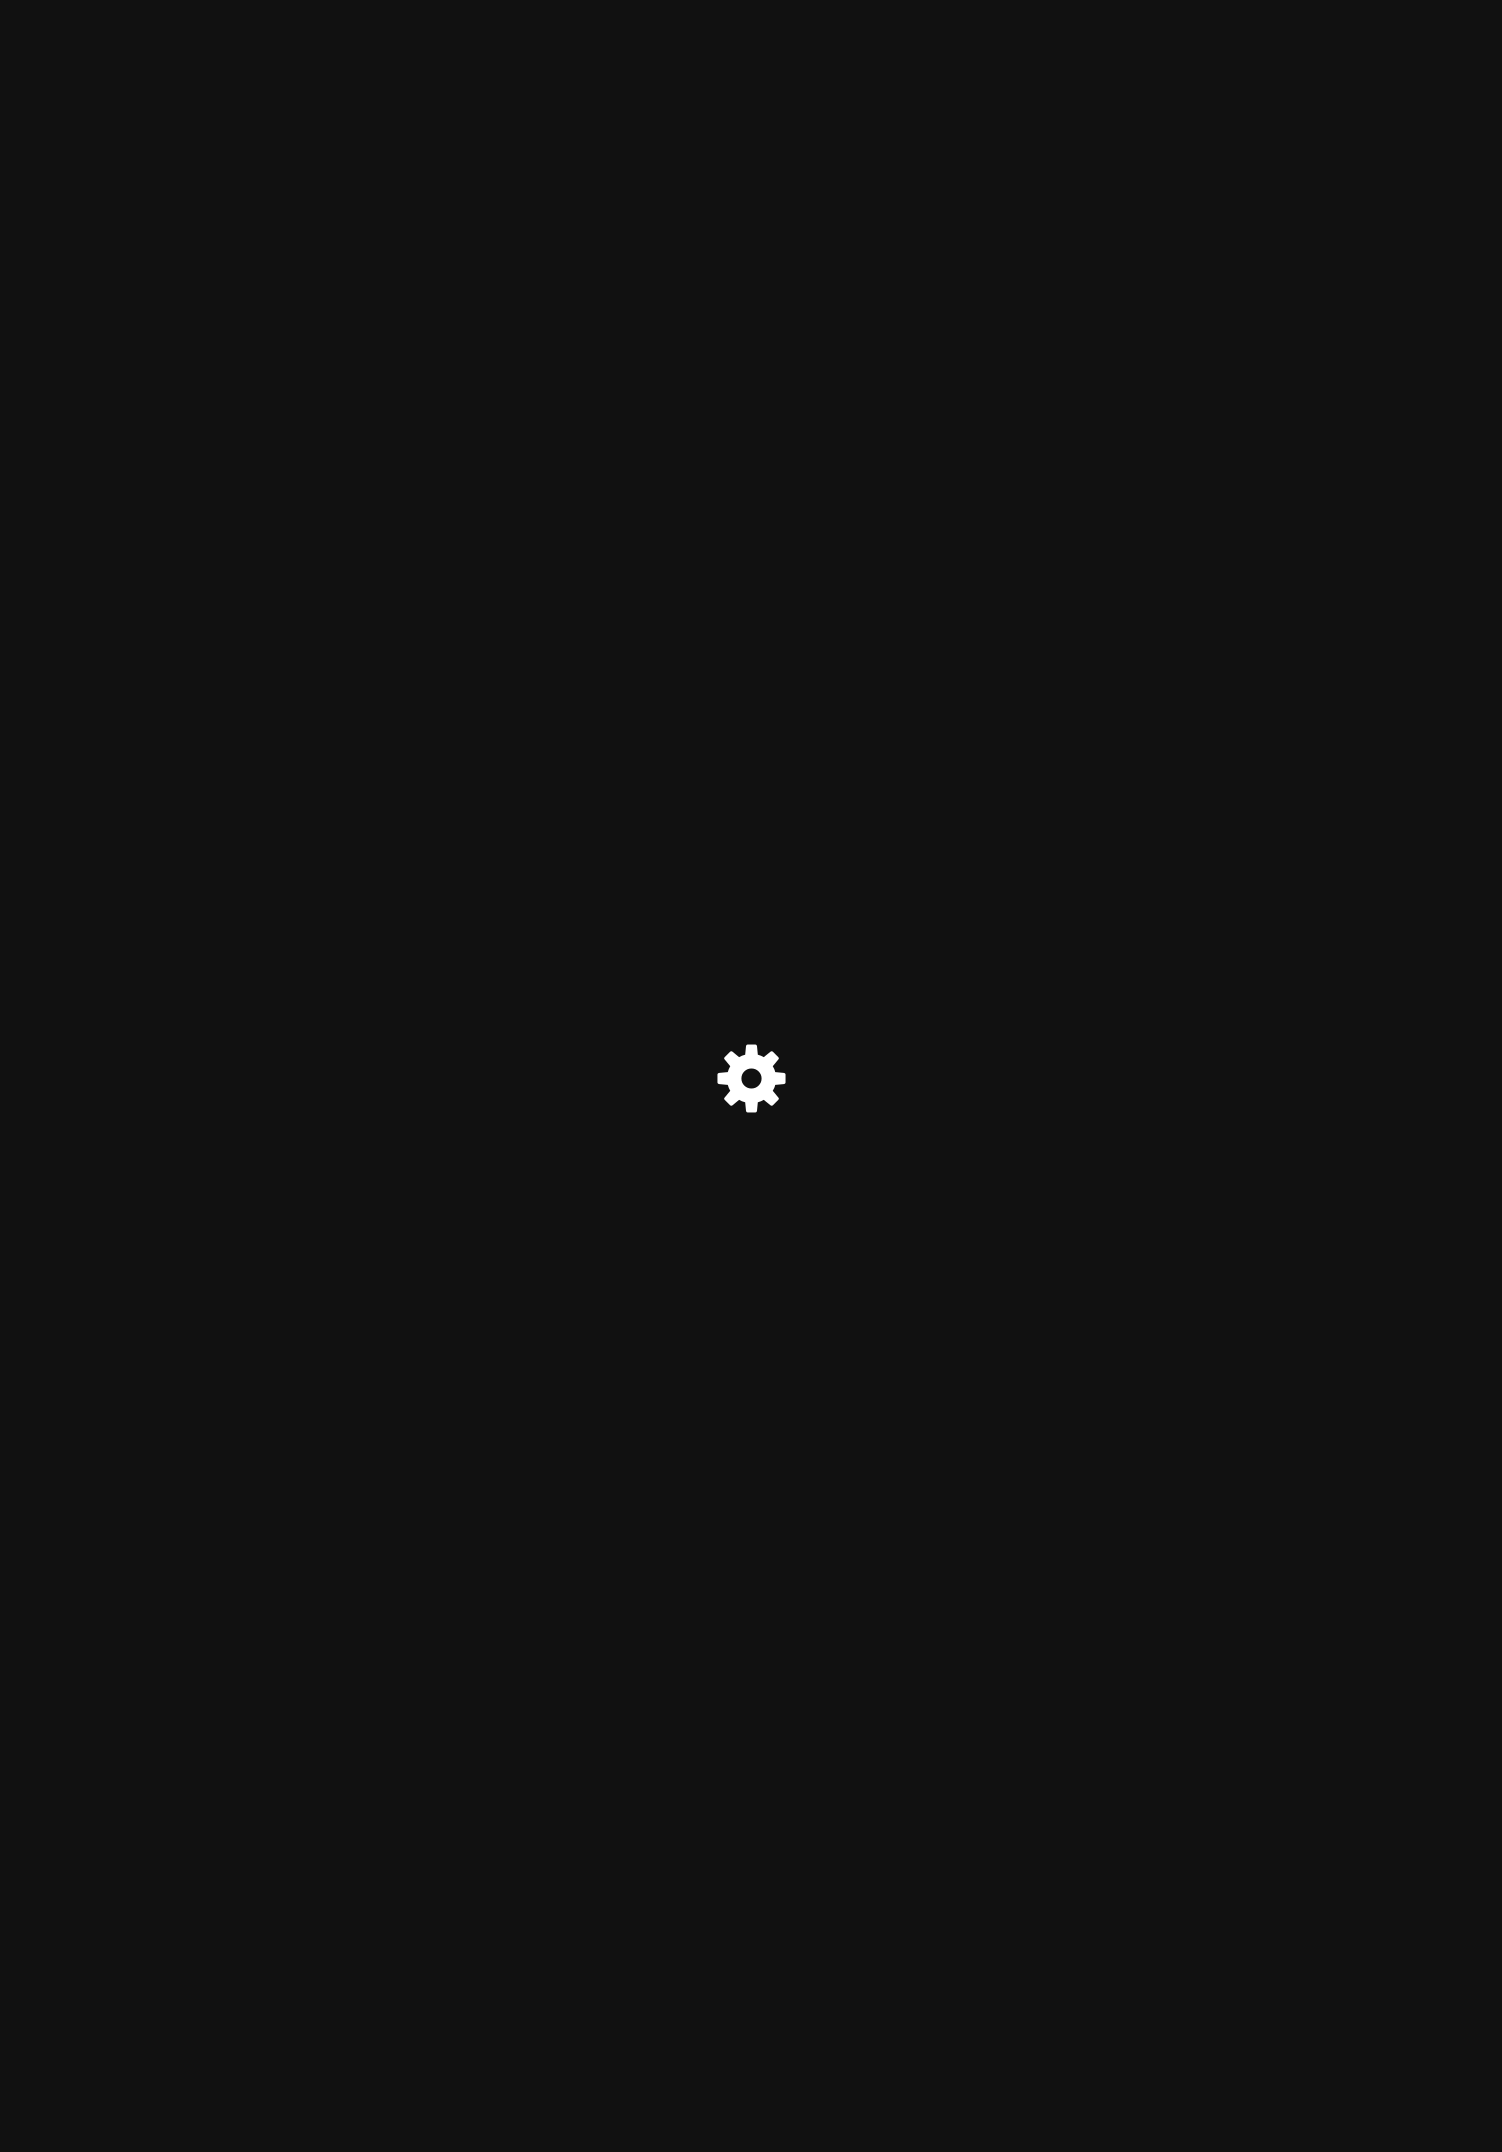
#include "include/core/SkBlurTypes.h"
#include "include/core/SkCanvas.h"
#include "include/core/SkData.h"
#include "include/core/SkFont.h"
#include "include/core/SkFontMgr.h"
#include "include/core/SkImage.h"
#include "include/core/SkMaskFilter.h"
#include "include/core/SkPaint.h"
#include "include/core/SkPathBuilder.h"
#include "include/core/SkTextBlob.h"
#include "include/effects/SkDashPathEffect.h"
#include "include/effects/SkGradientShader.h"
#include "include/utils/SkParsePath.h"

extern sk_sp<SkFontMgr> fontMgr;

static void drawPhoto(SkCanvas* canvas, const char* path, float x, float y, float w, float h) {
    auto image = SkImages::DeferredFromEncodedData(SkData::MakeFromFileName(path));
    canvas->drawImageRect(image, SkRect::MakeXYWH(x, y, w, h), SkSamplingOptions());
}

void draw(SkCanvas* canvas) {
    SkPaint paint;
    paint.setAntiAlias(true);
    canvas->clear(0xFF111111);
    drawPhoto(canvas, "assets/img1.png", 717, 1044, 69, 69);
}
